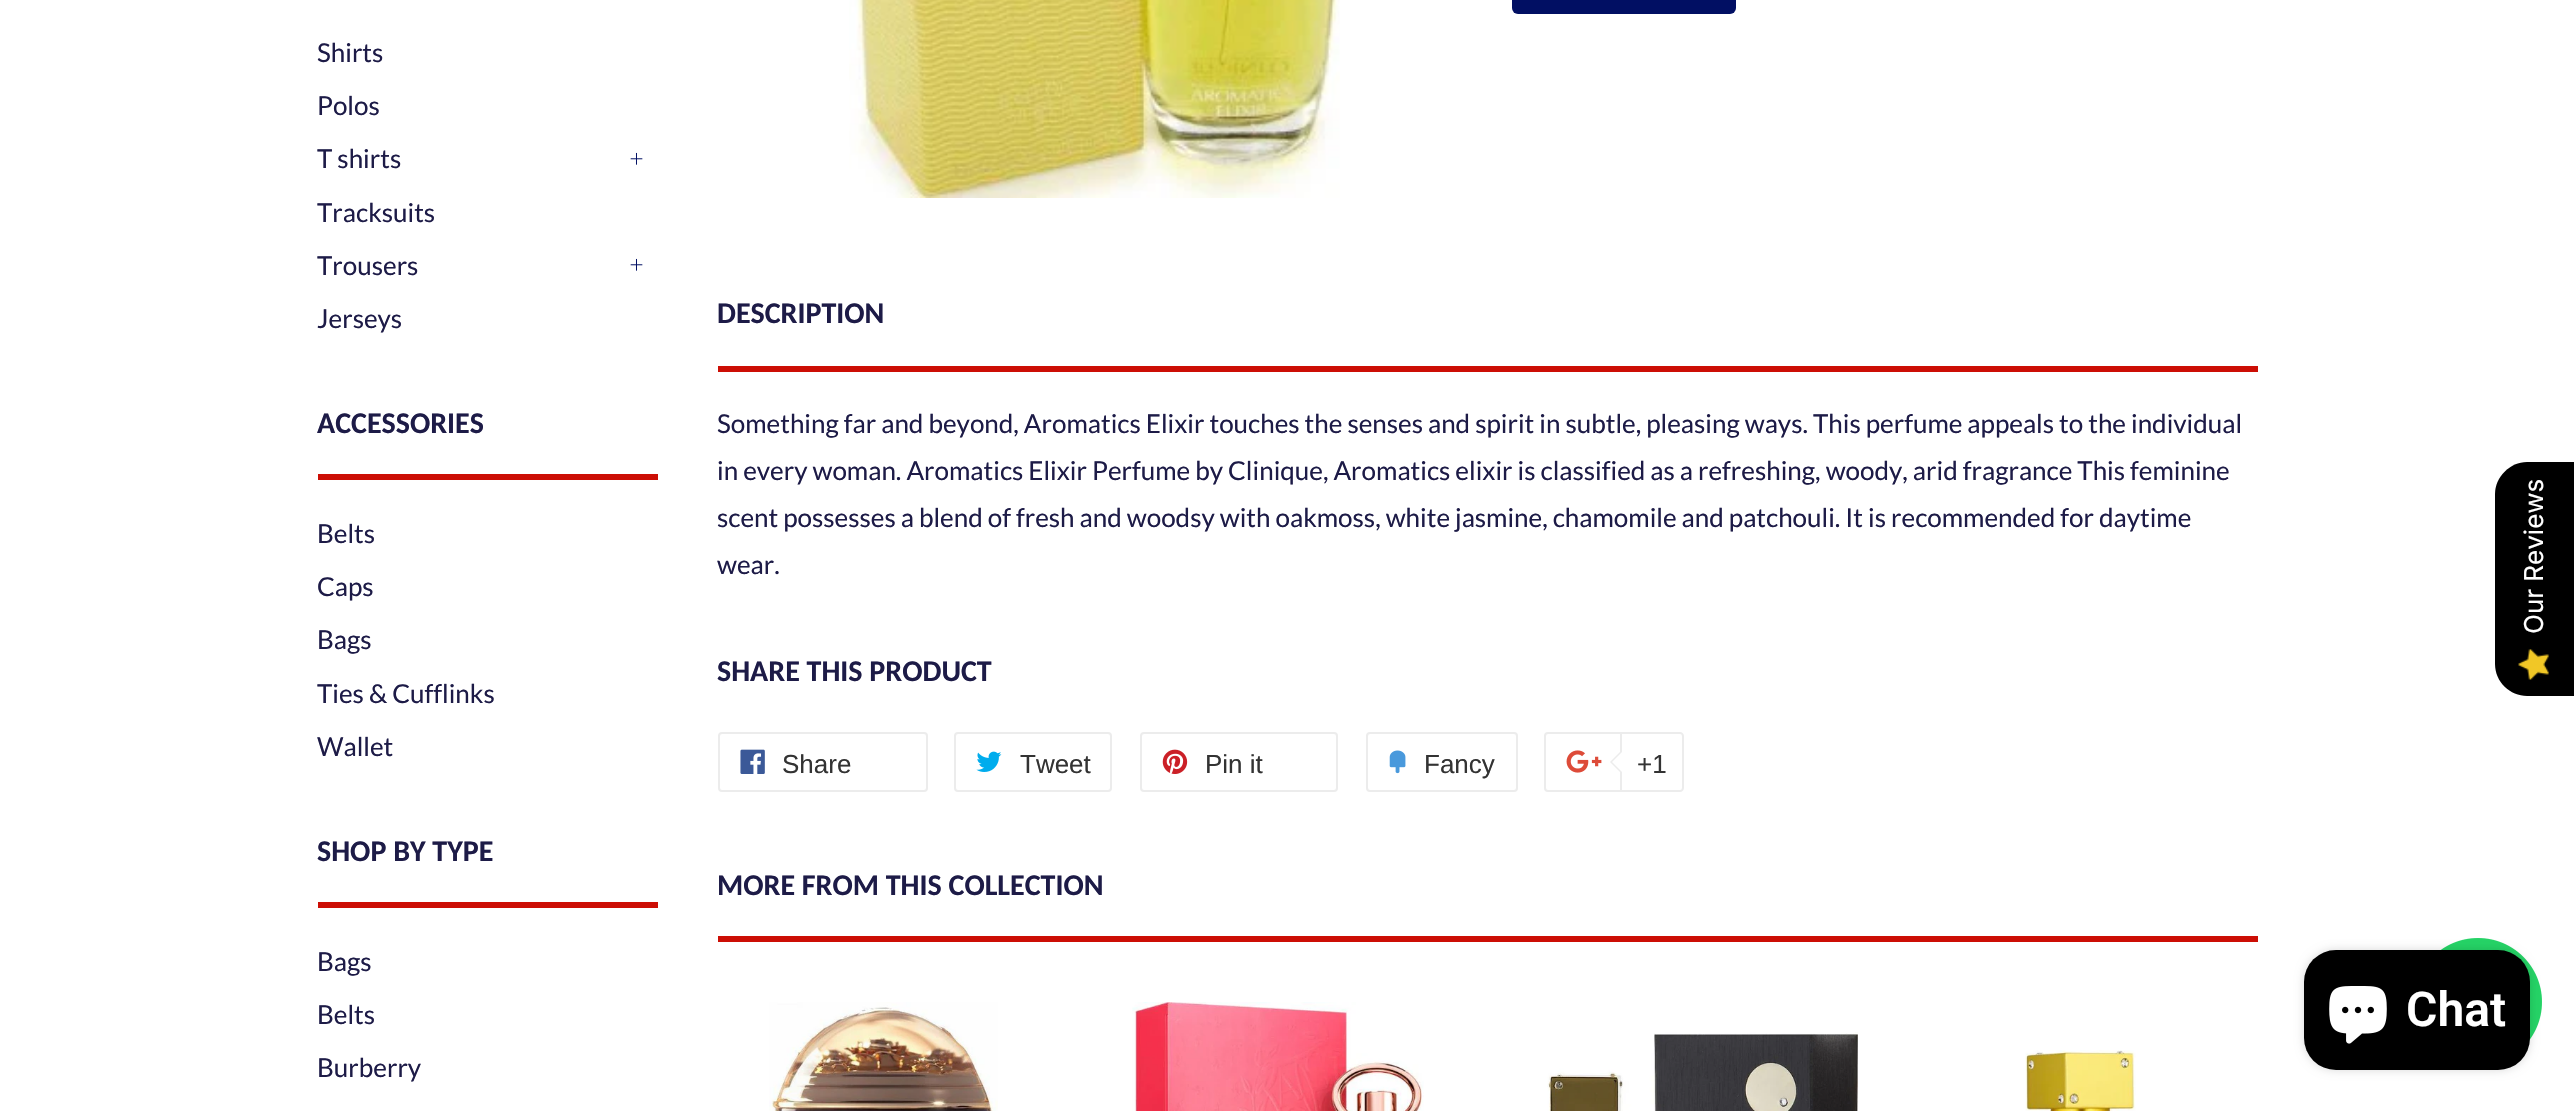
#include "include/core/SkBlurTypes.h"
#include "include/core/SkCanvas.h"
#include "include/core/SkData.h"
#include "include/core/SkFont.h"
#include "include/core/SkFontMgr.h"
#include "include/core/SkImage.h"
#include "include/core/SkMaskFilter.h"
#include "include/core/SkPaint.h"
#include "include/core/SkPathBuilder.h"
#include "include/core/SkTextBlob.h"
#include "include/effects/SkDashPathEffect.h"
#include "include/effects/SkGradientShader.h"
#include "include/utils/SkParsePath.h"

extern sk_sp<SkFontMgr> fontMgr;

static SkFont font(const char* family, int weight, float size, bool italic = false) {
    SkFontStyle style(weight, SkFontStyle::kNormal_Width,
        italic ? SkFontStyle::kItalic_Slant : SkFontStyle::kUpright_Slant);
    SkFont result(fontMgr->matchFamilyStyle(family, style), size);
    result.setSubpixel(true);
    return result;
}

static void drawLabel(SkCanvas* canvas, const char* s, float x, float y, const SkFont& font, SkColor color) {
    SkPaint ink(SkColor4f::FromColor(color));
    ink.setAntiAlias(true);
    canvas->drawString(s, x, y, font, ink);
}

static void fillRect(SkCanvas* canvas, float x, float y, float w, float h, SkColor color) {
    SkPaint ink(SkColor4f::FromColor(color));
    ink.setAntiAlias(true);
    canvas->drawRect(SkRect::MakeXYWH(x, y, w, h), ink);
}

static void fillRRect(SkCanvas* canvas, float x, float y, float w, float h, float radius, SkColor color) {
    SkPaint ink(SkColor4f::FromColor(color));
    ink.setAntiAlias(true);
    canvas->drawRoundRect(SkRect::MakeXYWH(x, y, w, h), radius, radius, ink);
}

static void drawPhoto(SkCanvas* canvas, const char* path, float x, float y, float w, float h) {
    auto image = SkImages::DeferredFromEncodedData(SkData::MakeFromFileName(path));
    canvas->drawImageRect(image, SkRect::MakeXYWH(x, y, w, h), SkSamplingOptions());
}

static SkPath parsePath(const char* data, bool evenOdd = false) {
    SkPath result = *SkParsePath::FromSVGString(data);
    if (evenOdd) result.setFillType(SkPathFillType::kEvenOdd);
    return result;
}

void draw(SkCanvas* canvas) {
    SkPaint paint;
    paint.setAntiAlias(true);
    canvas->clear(0xFFFFFFFF);
    SkFont font1 = font("Lato", 400, 26);
    drawLabel(canvas, "Shirts", 317, 62, font1, 0xFF1D1B47);
    drawLabel(canvas, "Polos", 317, 115, font1, 0xFF1D1B47);
    drawLabel(canvas, "T shirts", 317, 168, font1, 0xFF1D1B47);
    drawPhoto(canvas, "assets/img1.png", 630, 152, 13, 13);
    drawLabel(canvas, "Tracksuits", 317, 222, font1, 0xFF1D1B47);
    drawLabel(canvas, "Trousers", 317, 275, font1, 0xFF1D1B47);
    drawPhoto(canvas, "assets/img1.png", 630, 258, 13, 13);
    drawLabel(canvas, "Jerseys", 317, 328, font1, 0xFF1D1B47);
    fillRect(canvas, 318, 474, 340, 6, 0xFFCC0E05);
    SkFont font2 = font("Carlito", 700, 30);
    drawLabel(canvas, "ACCESSORIES", 317, 433, font2, 0xFF1D1B47);
    drawLabel(canvas, "Belts", 317, 543, font1, 0xFF1D1B47);
    drawLabel(canvas, "Caps", 317, 596, font1, 0xFF1D1B47);
    drawLabel(canvas, "Bags", 317, 649, font1, 0xFF1D1B47);
    drawLabel(canvas, "Ties & Cufflinks", 317, 703, font1, 0xFF1D1B47);
    drawLabel(canvas, "Wallet", 317, 756, font1, 0xFF1D1B47);
    fillRect(canvas, 318, 902, 340, 6, 0xFFCC0E05);
    drawLabel(canvas, "SHOP BY TYPE", 317, 861, font2, 0xFF1D1B47);
    drawLabel(canvas, "Bags", 317, 971, font1, 0xFF1D1B47);
    drawLabel(canvas, "Belts", 317, 1024, font1, 0xFF1D1B47);
    drawLabel(canvas, "Burberry", 317, 1077, font1, 0xFF1D1B47);
    drawPhoto(canvas, "assets/img2.png", 849, 0, 491, 198);
    fillRRect(canvas, 1512, -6, 224, 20, 6, 0xFF010F63);
    fillRect(canvas, 718, 366, 1540, 6, 0xFFCC0E05);
    drawLabel(canvas, "DESCRIPTION", 717, 323, font2, 0xFF1D1B47);
    drawLabel(canvas, "Something far and beyond, Aromatics Elixir touches the senses and spirit in subtle, pleasing ways. This perfume appeals to the individual", 717, 433, font1, 0xFF1D1B47);
    drawLabel(canvas, "in every woman. Aromatics Elixir Perfume by Clinique, Aromatics elixir is classified as a refreshing, woody, arid fragrance This feminine", 717, 480, font1, 0xFF1D1B47);
    drawLabel(canvas, "scent possesses a blend of fresh and woodsy with oakmoss, white jasmine, chamomile and patchouli. It is recommended for daytime", 717, 527, font1, 0xFF1D1B47);
    drawLabel(canvas, "wear.", 717, 574, font1, 0xFF1D1B47);
    drawLabel(canvas, "SHARE THIS PRODUCT", 717, 681, font2, 0xFF1D1B47);
    paint.setStroke(true);
    paint.setStrokeWidth(2);
    paint.setColor(0xFFECECEC);
    canvas->drawRoundRect(SkRect::MakeXYWH(719, 733, 208, 58), 3, 3, paint);
    drawPhoto(canvas, "assets/img3.png", 740, 749, 25, 25);
    SkFont font3 = font("Liberation Sans", 400, 26);
    drawLabel(canvas, "Share", 782, 773, font3, 0xFF333333);
    canvas->drawRoundRect(SkRect::MakeXYWH(955, 733, 156, 58), 3, 3, paint);
    drawPhoto(canvas, "assets/img4.png", 976, 751, 26, 21);
    drawLabel(canvas, "Tweet", 1020, 773, font3, 0xFF333333);
    canvas->drawRoundRect(SkRect::MakeXYWH(1141, 733, 196, 58), 3, 3, paint);
    drawPhoto(canvas, "assets/img5.png", 1162, 749, 26, 25);
    drawLabel(canvas, "Pin it", 1205, 773, font3, 0xFF333333);
    canvas->drawRoundRect(SkRect::MakeXYWH(1367, 733, 150, 58), 3, 3, paint);
    drawPhoto(canvas, "assets/img6.png", 1389, 750, 17, 24);
    drawLabel(canvas, "Fancy", 1424, 773, font3, 0xFF333333);
    canvas->drawRoundRect(SkRect::MakeXYWH(1545, 733, 136, 58), 3, 3, paint);
    drawPhoto(canvas, "assets/img7.png", 1566, 750, 36, 23);
    paint.setStroke(false);
    paint.setColor(0xFFFFFFFF);
    canvas->drawPath(parsePath("M1621 733H1680C1681.5 733 1683 734.5 1683 736V788C1683 789.5 1681.5 791 1680 791H1621Z"), paint);
    paint.setStroke(true);
    paint.setColor(0xFFECECEC);
    canvas->drawPath(parsePath("M1621 733H1680C1681.5 733 1683 734.5 1683 736V788C1683 789.5 1681.5 791 1680 791H1621Z"), paint);
    paint.setStroke(false);
    canvas->drawPath(parsePath("M1622 750V774L1610 762Z"), paint);
    paint.setColor(0xFFFFFFFF);
    canvas->drawPath(parsePath("M1624 750V774L1612 762Z"), paint);
    drawLabel(canvas, "+1", 1637, 773, font3, 0xFF333333);
    fillRect(canvas, 718, 936, 1540, 6, 0xFFCC0E05);
    drawLabel(canvas, "MORE FROM THIS COLLECTION", 717, 895, font2, 0xFF1D1B47);
    drawPhoto(canvas, "assets/img8.png", 769, 1002, 229, 109);
    drawPhoto(canvas, "assets/img9.png", 1132, 1002, 292, 109);
    drawPhoto(canvas, "assets/img10.png", 1547, 1032, 311, 79);
    drawPhoto(canvas, "assets/img11.png", 2025, 1050, 111, 61);
    paint.setColor(0xFF000000);
    canvas->drawPath(parsePath("M2495 664V494C2495 477 2510 462 2527 462H2574V696H2527C2510 696 2495 682 2495 664Z"), paint);
    SkFont font4 = font("Inter", 400, 26);
    canvas->save();
    canvas->rotate(-90, 2543, 634);
    drawLabel(canvas, "Our Reviews", 2543, 634, font4, 0xFFFFFFFF);
    canvas->restore();
    drawPhoto(canvas, "assets/img12.png", 2518, 649, 31, 31);
    drawPhoto(canvas, "assets/img13.png", 2440, 938, 102, 103);
    paint.setColor(0x26000000);
    paint.setMaskFilter(SkMaskFilter::MakeBlur(kNormal_SkBlurStyle, 5));
    canvas->drawRoundRect(SkRect::MakeXYWH(2304, 950, 226, 120), 32, 32, paint);
    paint.setMaskFilter(nullptr);
    fillRRect(canvas, 2304, 950, 226, 120, 32, 0xFF000000);
    drawPhoto(canvas, "assets/img14.png", 2329, 986, 58, 58);
    SkFont font5 = font("Roboto", 600, 48);
    drawLabel(canvas, "Chat", 2406, 1026, font5, 0xFFFFFFFF);
}
